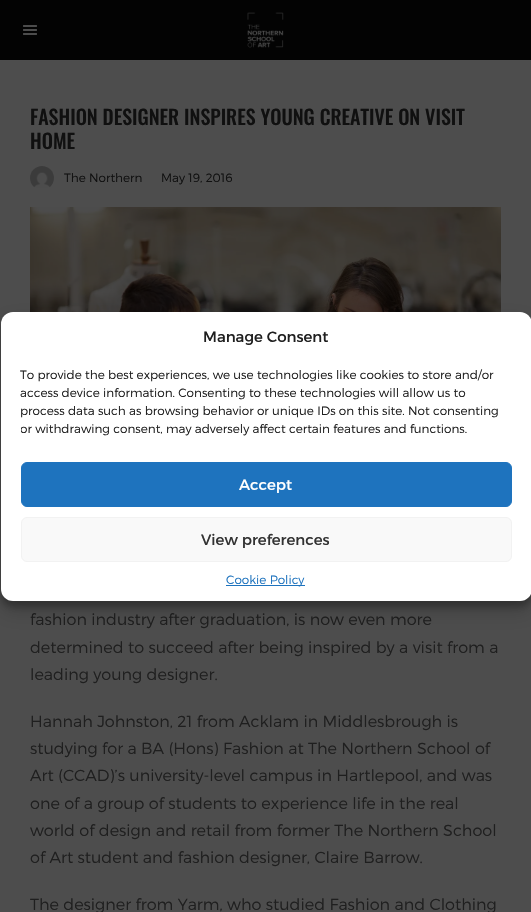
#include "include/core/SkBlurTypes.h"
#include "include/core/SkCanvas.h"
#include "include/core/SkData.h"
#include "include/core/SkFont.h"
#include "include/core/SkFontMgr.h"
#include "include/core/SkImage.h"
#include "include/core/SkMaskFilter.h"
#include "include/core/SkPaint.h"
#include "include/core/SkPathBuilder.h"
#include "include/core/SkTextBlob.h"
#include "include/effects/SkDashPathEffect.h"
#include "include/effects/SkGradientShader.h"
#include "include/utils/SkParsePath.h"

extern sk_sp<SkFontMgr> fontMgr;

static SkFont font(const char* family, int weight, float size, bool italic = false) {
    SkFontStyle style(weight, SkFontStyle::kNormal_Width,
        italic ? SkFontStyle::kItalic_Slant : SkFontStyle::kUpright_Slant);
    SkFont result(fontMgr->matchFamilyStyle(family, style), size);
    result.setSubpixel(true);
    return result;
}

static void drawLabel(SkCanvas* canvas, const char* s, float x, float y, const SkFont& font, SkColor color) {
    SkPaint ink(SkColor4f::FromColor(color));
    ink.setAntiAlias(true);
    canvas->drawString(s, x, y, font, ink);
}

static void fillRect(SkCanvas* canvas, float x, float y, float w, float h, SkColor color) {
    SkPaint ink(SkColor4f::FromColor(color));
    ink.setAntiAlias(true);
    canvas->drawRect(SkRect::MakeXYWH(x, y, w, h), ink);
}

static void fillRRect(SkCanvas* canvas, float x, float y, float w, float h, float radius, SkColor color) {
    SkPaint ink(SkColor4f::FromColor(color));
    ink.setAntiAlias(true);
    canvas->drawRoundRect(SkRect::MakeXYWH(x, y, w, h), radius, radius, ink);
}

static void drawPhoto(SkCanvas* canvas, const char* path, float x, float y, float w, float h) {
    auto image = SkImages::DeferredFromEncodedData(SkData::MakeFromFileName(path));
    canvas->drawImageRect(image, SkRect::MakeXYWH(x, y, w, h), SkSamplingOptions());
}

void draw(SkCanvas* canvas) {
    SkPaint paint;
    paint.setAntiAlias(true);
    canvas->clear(0xFF4D4D4D);
    fillRect(canvas, 0, 0, 531, 60, 0xFF030303);
    drawPhoto(canvas, "assets/img1.png", 23, 25, 14, 10);
    drawPhoto(canvas, "assets/img2.png", 247, 12, 37, 36);
    SkFont font1 = font("Oswald", 500, 20);
    drawLabel(canvas, "FASHION DESIGNER INSPIRES YOUNG CREATIVE ON VISIT", 30, 125, font1, 0xFF101010);
    drawLabel(canvas, "HOME", 30, 149, font1, 0xFF101010);
    drawPhoto(canvas, "assets/img3.png", 30, 166, 24, 22);
    SkFont font2 = font("Montserrat", 300, 12);
    drawLabel(canvas, "The Northern", 64, 182, font2, 0xFF101010);
    drawLabel(canvas, "May 19, 2016", 161, 182, font2, 0xFF101010);
    drawPhoto(canvas, "assets/img4.png", 30, 207, 471, 105);
    SkFont font3 = font("Montserrat", 300, 16);
    drawLabel(canvas, "fashion industry after graduation, is now even more", 30, 625, font3, 0xFF1F1F1F);
    drawLabel(canvas, "determined to succeed after being inspired by a visit from a", 30, 653, font3, 0xFF1F1F1F);
    drawLabel(canvas, "leading young designer.", 30, 680, font3, 0xFF1F1F1F);
    drawLabel(canvas, "Hannah Johnston, 21 from Acklam in Middlesbrough is", 30, 727, font3, 0xFF1F1F1F);
    drawLabel(canvas, "studying for a BA (Hons) Fashion at The Northern School of", 30, 754, font3, 0xFF1F1F1F);
    drawLabel(canvas, "Art (CCAD)’s university-level campus in Hartlepool, and was", 30, 781, font3, 0xFF1F1F1F);
    drawLabel(canvas, "one of a group of students to experience life in the real", 30, 809, font3, 0xFF1F1F1F);
    drawLabel(canvas, "world of design and retail from former The Northern School", 30, 836, font3, 0xFF1F1F1F);
    drawLabel(canvas, "of Art student and fashion designer, Claire Barrow.", 30, 863, font3, 0xFF1F1F1F);
    drawLabel(canvas, "The designer from Yarm, who studied Fashion and Clothing", 30, 910, font3, 0xFF1F1F1F);
    paint.setColor(0x3B000000);
    paint.setMaskFilter(SkMaskFilter::MakeBlur(kNormal_SkBlurStyle, 3));
    canvas->drawRoundRect(SkRect::MakeXYWH(1, 318, 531, 289), 12, 12, paint);
    paint.setMaskFilter(nullptr);
    paint.setColor(0x30000000);
    paint.setMaskFilter(SkMaskFilter::MakeBlur(kNormal_SkBlurStyle, 10));
    canvas->drawRoundRect(SkRect::MakeXYWH(1, 322, 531, 289), 12, 12, paint);
    paint.setMaskFilter(nullptr);
    fillRRect(canvas, 1, 312, 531, 289, 12, 0xFFFFFFFF);
    SkFont font4 = font("Montserrat", 400, 15);
    drawLabel(canvas, "Manage Consent", 203, 342, font4, 0xFF1F1F1F);
    drawLabel(canvas, "To provide the best experiences, we use technologies like cookies to store and/or", 20, 379, font2, 0xFF1F1F1F);
    drawLabel(canvas, "access device information. Consenting to these technologies will allow us to", 20, 397, font2, 0xFF1F1F1F);
    drawLabel(canvas, "process data such as browsing behavior or unique IDs on this site. Not consenting", 20, 415, font2, 0xFF1F1F1F);
    canvas->save();
    canvas->clipRect(SkRect::MakeXYWH(21, 365, 491, 77));
    drawLabel(canvas, "or withdrawing consent, may adversely affect certain features and functions.", 20, 433, font2, 0xFF1F1F1F);
    canvas->restore();
    paint.setColor(0xFF1E73BE);
    canvas->drawRoundRect(SkRect::MakeXYWH(21.5f, 462.5f, 490, 44), 5.5f, 5.5f, paint);
    paint.setStroke(true);
    paint.setStrokeWidth(1);
    canvas->drawRoundRect(SkRect::MakeXYWH(21.5f, 462.5f, 490, 44), 5.5f, 5.5f, paint);
    drawLabel(canvas, "Accept", 239, 490, font4, 0xFFFFFFFF);
    paint.setStroke(false);
    paint.setColor(0xFFF9F9F9);
    canvas->drawRoundRect(SkRect::MakeXYWH(21.5f, 517.5f, 490, 44), 5.5f, 5.5f, paint);
    paint.setStroke(true);
    paint.setColor(0xFFF2F2F2);
    canvas->drawRoundRect(SkRect::MakeXYWH(21.5f, 517.5f, 490, 44), 5.5f, 5.5f, paint);
    drawLabel(canvas, "View preferences", 201, 545, font4, 0xFF333333);
    fillRect(canvas, 226, 585, 79, 1, 0xFF1E73BE);
    drawLabel(canvas, "Cookie Policy", 226, 584, font2, 0xFF1E73BE);
}
